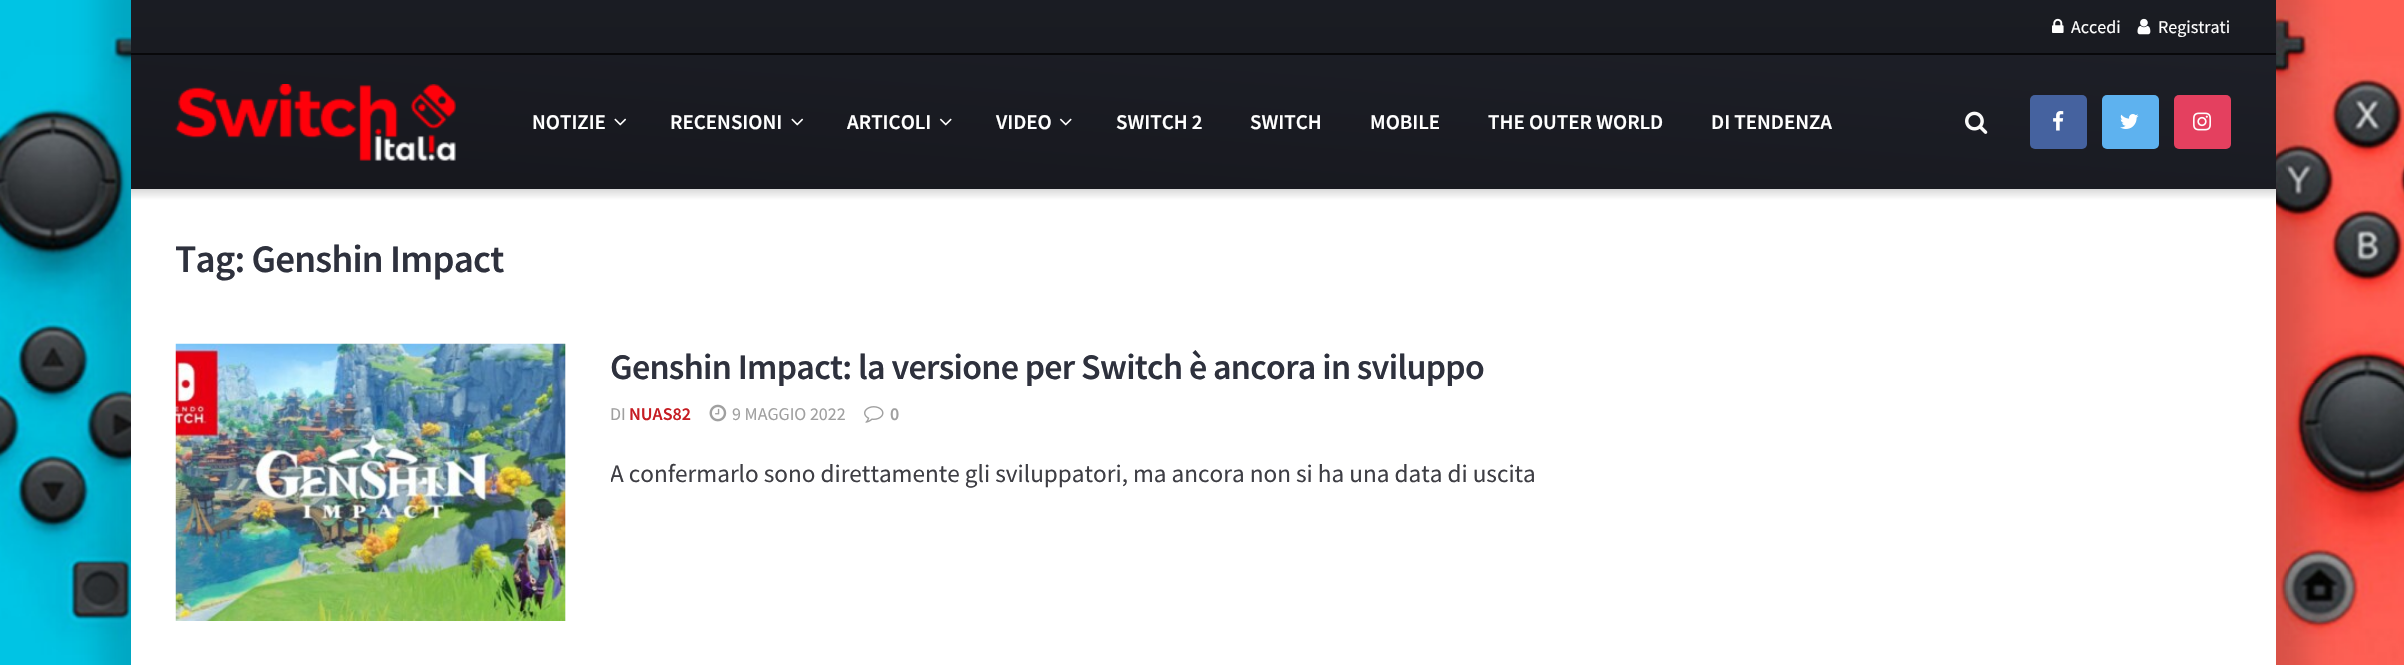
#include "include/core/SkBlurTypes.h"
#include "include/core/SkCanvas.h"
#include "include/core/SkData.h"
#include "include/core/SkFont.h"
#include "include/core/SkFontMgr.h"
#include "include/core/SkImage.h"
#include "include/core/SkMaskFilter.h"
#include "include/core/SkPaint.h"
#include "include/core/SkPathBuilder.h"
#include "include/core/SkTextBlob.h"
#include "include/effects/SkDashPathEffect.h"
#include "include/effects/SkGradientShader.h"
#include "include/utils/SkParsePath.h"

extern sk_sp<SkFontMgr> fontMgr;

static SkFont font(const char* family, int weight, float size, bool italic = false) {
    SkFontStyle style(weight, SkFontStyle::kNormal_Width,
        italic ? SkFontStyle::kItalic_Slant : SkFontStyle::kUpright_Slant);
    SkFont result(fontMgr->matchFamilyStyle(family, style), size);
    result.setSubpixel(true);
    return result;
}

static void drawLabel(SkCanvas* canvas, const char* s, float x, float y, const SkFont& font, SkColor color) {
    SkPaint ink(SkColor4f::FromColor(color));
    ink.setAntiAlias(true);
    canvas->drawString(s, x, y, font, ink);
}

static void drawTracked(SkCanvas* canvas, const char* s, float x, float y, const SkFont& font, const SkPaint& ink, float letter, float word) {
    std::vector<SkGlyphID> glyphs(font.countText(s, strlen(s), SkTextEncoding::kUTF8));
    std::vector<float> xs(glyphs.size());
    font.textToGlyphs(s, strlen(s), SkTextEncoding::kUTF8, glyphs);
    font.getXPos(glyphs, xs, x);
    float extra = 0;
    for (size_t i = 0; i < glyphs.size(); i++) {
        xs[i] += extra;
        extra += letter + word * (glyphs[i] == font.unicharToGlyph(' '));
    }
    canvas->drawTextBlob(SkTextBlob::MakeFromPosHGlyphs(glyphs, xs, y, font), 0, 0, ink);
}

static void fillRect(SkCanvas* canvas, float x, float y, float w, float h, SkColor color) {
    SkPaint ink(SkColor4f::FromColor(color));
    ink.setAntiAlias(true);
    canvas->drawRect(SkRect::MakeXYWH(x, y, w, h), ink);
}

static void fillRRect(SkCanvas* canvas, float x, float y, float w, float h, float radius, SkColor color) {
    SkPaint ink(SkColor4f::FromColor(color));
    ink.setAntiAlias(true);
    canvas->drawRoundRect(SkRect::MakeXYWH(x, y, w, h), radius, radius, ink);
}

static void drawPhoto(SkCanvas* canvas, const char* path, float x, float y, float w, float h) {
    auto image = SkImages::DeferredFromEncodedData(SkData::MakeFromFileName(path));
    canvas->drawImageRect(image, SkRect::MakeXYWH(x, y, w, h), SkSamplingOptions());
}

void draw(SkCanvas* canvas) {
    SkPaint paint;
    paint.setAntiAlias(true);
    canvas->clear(0xFFFFFFFF);
    drawPhoto(canvas, "assets/img1.png", 0, 0, 2404, 665);
    paint.setColor(0x26000000);
    paint.setMaskFilter(SkMaskFilter::MakeBlur(kNormal_SkBlurStyle, 15));
    canvas->drawRect(SkRect::MakeXYWH(101, -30, 2205, 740), paint);
    paint.setMaskFilter(nullptr);
    {
        const SkColor colors[] = {0xFF1A1C23, 0xFF191B21};
        const float stops[] = {0, 1};
        const SkPoint ends[] = {{1203, 0}, {1203, 53}};
        paint.setShader(SkGradientShader::MakeLinear(ends, colors, stops, 2, SkTileMode::kClamp));
        paint.setAlpha(255);
    }
    canvas->drawRect(SkRect::MakeXYWH(131, 0, 2145, 53), paint);
    fillRect(canvas, 131, 53, 2145, 2, 0xFF08080A);
    drawPhoto(canvas, "assets/img2.png", 2052, 18, 12, 15);
    SkFont font1 = font("Source Sans Pro", 400, 18);
    drawLabel(canvas, "Accedi", 2071, 33, font1, 0xFFFFFFFF);
    drawPhoto(canvas, "assets/img3.png", 2137, 18, 14, 17);
    drawLabel(canvas, "Registrati", 2158, 33, font1, 0xFFFFFFFF);
    {
        const SkColor colors[] = {0xFF1D1F27, 0xFF16171D};
        const float stops[] = {0, 1};
        const SkPoint ends[] = {{1213, -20}, {1193, 263}};
        paint.setShader(SkGradientShader::MakeLinear(ends, colors, stops, 2, SkTileMode::kClamp));
        paint.setAlpha(255);
    }
    canvas->drawRect(SkRect::MakeXYWH(131, 55, 2145, 134), paint);
    drawPhoto(canvas, "assets/img4.png", 175, 84, 281, 77);
    SkFont font2 = font("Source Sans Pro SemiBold", 600, 21);
    drawLabel(canvas, "NOTIZIE", 532, 129, font2, 0xFFFFFFFF);
    drawPhoto(canvas, "assets/img5.png", 614, 118, 13, 8);
    drawLabel(canvas, "RECENSIONI", 670, 129, font2, 0xFFFFFFFF);
    drawPhoto(canvas, "assets/img6.png", 791, 118, 13, 8);
    drawLabel(canvas, "ARTICOLI", 847, 129, font2, 0xFFFFFFFF);
    drawPhoto(canvas, "assets/img7.png", 939, 118, 13, 8);
    drawLabel(canvas, "VIDEO", 996, 129, font2, 0xFFFFFFFF);
    drawPhoto(canvas, "assets/img8.png", 1059, 118, 13, 8);
    drawLabel(canvas, "SWITCH 2", 1116, 129, font2, 0xFFFFFFFF);
    drawLabel(canvas, "SWITCH", 1250, 129, font2, 0xFFFFFFFF);
    drawLabel(canvas, "MOBILE", 1370, 129, font2, 0xFFFFFFFF);
    drawLabel(canvas, "THE OUTER WORLD", 1488, 129, font2, 0xFFFFFFFF);
    drawLabel(canvas, "DI TENDENZA", 1711, 129, font2, 0xFFFFFFFF);
    drawPhoto(canvas, "assets/img9.png", 1965, 111, 23, 23);
    fillRRect(canvas, 2030, 95, 57, 54, 5, 0xFF45629F);
    drawPhoto(canvas, "assets/img10.png", 2053, 111, 11, 20);
    fillRRect(canvas, 2102, 95, 57, 54, 5, 0xFF5EB2EF);
    drawPhoto(canvas, "assets/img11.png", 2120, 114, 19, 15);
    fillRRect(canvas, 2174, 95, 57, 54, 5, 0xFFE4405F);
    drawPhoto(canvas, "assets/img12.png", 2193, 112, 18, 19);
    {
        const SkColor colors[] = {0xFFD9D9D9, 0xFFFFFFFF};
        const float stops[] = {0, 1};
        const SkPoint ends[] = {{1203, 189}, {1203, 200}};
        paint.setShader(SkGradientShader::MakeLinear(ends, colors, stops, 2, SkTileMode::kClamp));
        paint.setAlpha(255);
    }
    canvas->drawRect(SkRect::MakeXYWH(131, 189, 2145, 11), paint);
    fillRect(canvas, 131, 200, 2145, 465, 0xFFFFFFFF);
    SkFont font3 = font("Source Sans Pro SemiBold", 600, 39);
    paint.setShader(nullptr);
    paint.setColor(0xFF2E313D);
    drawTracked(canvas, "Tag: Genshin Impact", 175, 272, font3, paint, -0.75f, 0);
    fillRect(canvas, 565, 344, 1, 277, 0xFFF7F7F7);
    drawPhoto(canvas, "assets/img13.png", 175, 343, 391, 278);
    SkFont font4 = font("Source Sans Pro SemiBold", 600, 36);
    drawTracked(canvas, "Genshin Impact: la versione per Switch è ancora in sviluppo", 610, 379, font4, paint, -0.72f, 0);
    drawLabel(canvas, "DI", 610, 420, font1, 0xFFA0A0A0);
    SkFont font5 = font("Source Sans Pro SemiBold", 600, 18);
    drawLabel(canvas, "NUAS82", 629, 420, font5, 0xFFC61D23);
    drawPhoto(canvas, "assets/img14.png", 709, 404, 18, 18);
    drawLabel(canvas, "9 MAGGIO 2022", 732, 420, font1, 0xFFA0A0A0);
    drawPhoto(canvas, "assets/img15.png", 864, 406, 20, 17);
    drawLabel(canvas, "0", 890, 420, font5, 0xFFA0A0A0);
    canvas->save();
    canvas->clipRect(SkRect::MakeXYWH(611, 344, 1620, 151));
    SkFont font6 = font("Source Sans Pro", 400, 25.2f);
    drawLabel(canvas, "A confermarlo sono direttamente gli sviluppatori, ma ancora non si ha una data di uscita", 610, 482, font6, 0xFF3E3E44);
    canvas->restore();
}
